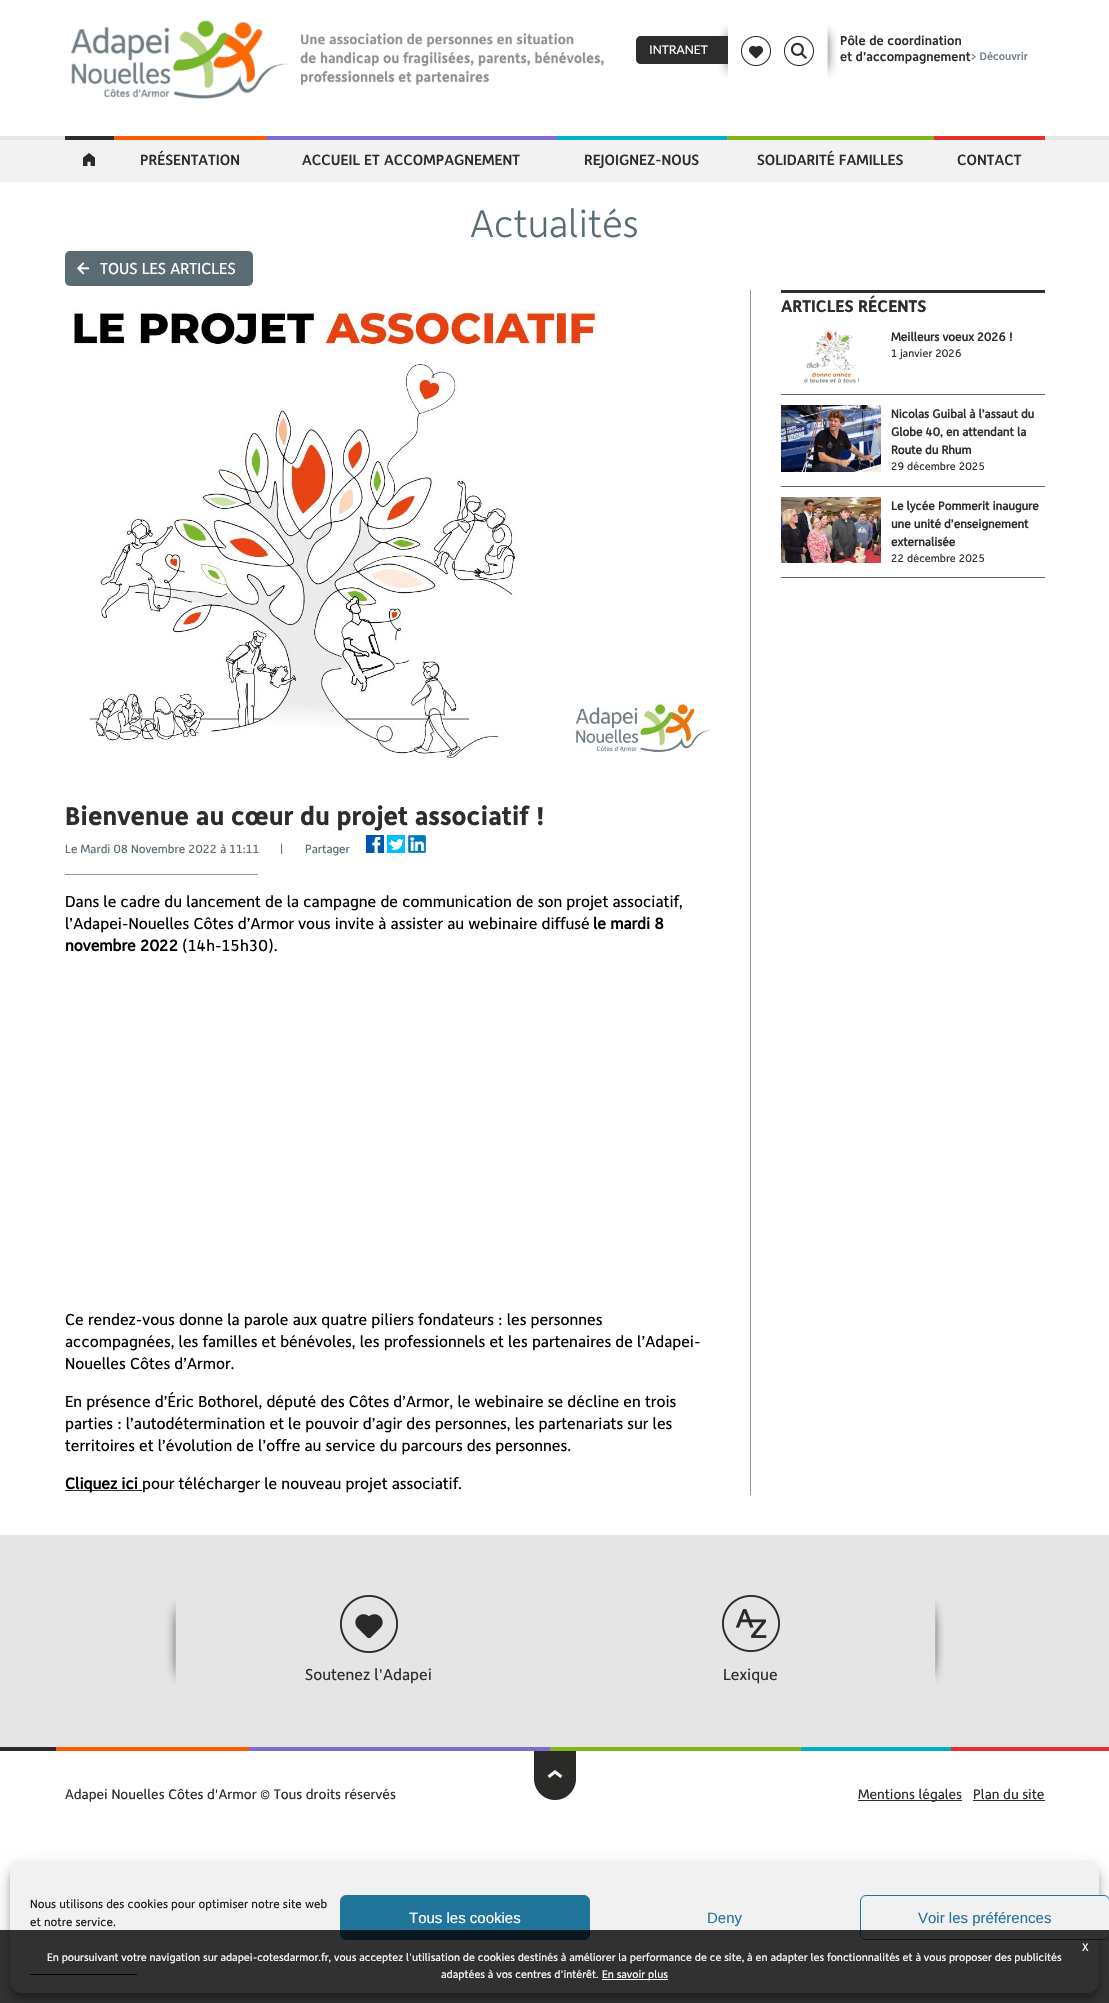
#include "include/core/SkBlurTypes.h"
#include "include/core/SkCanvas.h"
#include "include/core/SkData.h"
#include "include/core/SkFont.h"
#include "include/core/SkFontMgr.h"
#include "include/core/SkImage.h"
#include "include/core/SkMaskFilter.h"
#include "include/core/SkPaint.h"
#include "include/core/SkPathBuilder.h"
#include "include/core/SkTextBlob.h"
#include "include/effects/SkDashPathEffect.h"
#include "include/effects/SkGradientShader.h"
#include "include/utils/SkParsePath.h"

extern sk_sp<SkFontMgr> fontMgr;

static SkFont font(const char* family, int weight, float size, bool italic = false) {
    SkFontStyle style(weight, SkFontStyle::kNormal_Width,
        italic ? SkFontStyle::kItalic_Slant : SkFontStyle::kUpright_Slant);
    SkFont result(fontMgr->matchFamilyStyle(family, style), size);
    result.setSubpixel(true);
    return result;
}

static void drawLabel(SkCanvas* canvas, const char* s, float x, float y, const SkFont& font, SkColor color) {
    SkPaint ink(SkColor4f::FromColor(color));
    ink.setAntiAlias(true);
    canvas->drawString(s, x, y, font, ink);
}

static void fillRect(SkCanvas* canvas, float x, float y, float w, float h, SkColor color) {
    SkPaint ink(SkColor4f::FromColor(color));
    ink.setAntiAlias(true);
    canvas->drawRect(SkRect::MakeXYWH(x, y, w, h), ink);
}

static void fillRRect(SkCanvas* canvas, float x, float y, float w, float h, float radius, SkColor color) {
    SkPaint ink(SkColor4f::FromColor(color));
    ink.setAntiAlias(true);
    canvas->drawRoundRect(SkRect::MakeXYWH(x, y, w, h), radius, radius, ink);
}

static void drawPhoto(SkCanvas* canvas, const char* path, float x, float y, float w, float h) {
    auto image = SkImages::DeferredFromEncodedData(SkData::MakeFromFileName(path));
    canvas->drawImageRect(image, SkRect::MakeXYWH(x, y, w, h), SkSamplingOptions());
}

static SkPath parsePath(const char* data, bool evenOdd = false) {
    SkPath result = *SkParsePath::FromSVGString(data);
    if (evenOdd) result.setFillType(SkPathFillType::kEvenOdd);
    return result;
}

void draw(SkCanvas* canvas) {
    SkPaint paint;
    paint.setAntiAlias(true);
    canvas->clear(0xFFFFFFFF);
    drawPhoto(canvas, "assets/img1.png", 71, 20, 533, 79);
    drawPhoto(canvas, "assets/img2.png", 719, 24, 9, 54);
    paint.setColor(0xFF2D2D2D);
    canvas->drawPath(parsePath("M641 36H728V64H641C638 64 636 62 636 59V41C636 38 638 36 641 36Z"), paint);
    SkFont font1 = font("Lato", 400, 12);
    drawLabel(canvas, "INTRANET", 649, 54, font1, 0xFFFFFFFF);
    drawPhoto(canvas, "assets/img3.png", 741, 36, 30, 30);
    drawPhoto(canvas, "assets/img4.png", 784, 36, 30, 30);
    drawPhoto(canvas, "assets/img5.png", 827, 24, 10, 54);
    SkFont font2 = font("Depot", 500, 13);
    drawLabel(canvas, "Pôle de coordination", 840, 45, font2, 0xFF2D2D2D);
    drawLabel(canvas, "et d’accompagnement", 840, 61, font2, 0xFF2D2D2D);
    SkFont font3 = font("Depot", 500, 11);
    drawLabel(canvas, "> Découvrir", 971, 60, font3, 0xFF717E85);
    fillRect(canvas, 0, 140, 1109, 42, 0xFFF2F2F2);
    fillRect(canvas, 0, 136, 1109, 4, 0xFFE5E5E5);
    fillRect(canvas, 65, 136, 49, 4, 0xFF2D2D2D);
    drawPhoto(canvas, "assets/img6.png", 83, 153, 12, 13);
    fillRect(canvas, 114, 136, 152, 4, 0xFFFF5B00);
    SkFont font4 = font("Depot", 500, 15);
    drawLabel(canvas, "PRÉSENTATION", 140, 165, font4, 0xFF2D2D2D);
    fillRect(canvas, 266, 136, 291, 4, 0xFF7D6ECB);
    drawLabel(canvas, "ACCUEIL ET ACCOMPAGNEMENT", 302, 165, font4, 0xFF2D2D2D);
    fillRect(canvas, 557, 136, 170, 4, 0xFF00B0C4);
    drawLabel(canvas, "REJOIGNEZ-NOUS", 584, 165, font4, 0xFF2D2D2D);
    fillRect(canvas, 727, 136, 207, 4, 0xFF82B618);
    drawLabel(canvas, "SOLIDARITÉ FAMILLES", 757, 165, font4, 0xFF2D2D2D);
    fillRect(canvas, 934, 136, 111, 4, 0xFFE83030);
    drawLabel(canvas, "CONTACT", 957, 165, font4, 0xFF2D2D2D);
    SkFont font5 = font("Depot", 300, 39);
    drawLabel(canvas, "Actualités", 470, 237, font5, 0xFF5B6B73);
    fillRRect(canvas, 65, 251, 188, 35, 5, 0xFF5B6B73);
    drawPhoto(canvas, "assets/img7.png", 75, 259, 15, 16);
    SkFont font6 = font("Depot", 400, 16);
    drawLabel(canvas, "TOUS LES ARTICLES", 100, 274, font6, 0xFFFFFFFF);
    fillRect(canvas, 781, 290, 264, 3, 0xFF2D2D2D);
    SkFont font7 = font("Depot", 700, 17);
    drawLabel(canvas, "ARTICLES RÉCENTS", 781, 312, font7, 0xFF2D2D2D);
    fillRect(canvas, 781, 394, 264, 1, 0xFF5B6B73);
    drawPhoto(canvas, "assets/img8.png", 804, 330, 56, 53);
    SkFont font8 = font("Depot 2", 700, 12);
    drawLabel(canvas, "Meilleurs voeux 2026 !", 891, 341, font8, 0xFF2D2D2D);
    SkFont font9 = font("Depot", 400, 11);
    drawLabel(canvas, "1 janvier 2026", 891, 357, font9, 0xFF2D2D2D);
    fillRect(canvas, 781, 486, 264, 1, 0xFF5B6B73);
    drawPhoto(canvas, "assets/img9.png", 781, 405, 100, 67);
    drawLabel(canvas, "Nicolas Guibal à l’assaut du", 891, 418, font8, 0xFF2D2D2D);
    drawLabel(canvas, "Globe 40, en attendant la", 891, 436, font8, 0xFF2D2D2D);
    drawLabel(canvas, "Route du Rhum", 891, 454, font8, 0xFF2D2D2D);
    drawLabel(canvas, "29 décembre 2025", 891, 470, font9, 0xFF2D2D2D);
    fillRect(canvas, 781, 577, 264, 1, 0xFF5B6B73);
    drawPhoto(canvas, "assets/img10.png", 781, 497, 100, 66);
    drawLabel(canvas, "Le lycée Pommerit inaugure", 891, 510, font8, 0xFF2D2D2D);
    drawLabel(canvas, "une unité d’enseignement", 891, 528, font8, 0xFF2D2D2D);
    drawLabel(canvas, "externalisée", 891, 546, font8, 0xFF2D2D2D);
    drawLabel(canvas, "22 décembre 2025", 891, 562, font9, 0xFF2D2D2D);
    fillRect(canvas, 750, 290, 1, 1205, 0xFF939597);
    drawPhoto(canvas, "assets/img11.png", 74, 310, 636, 451);
    SkFont font10 = font("Depot", 700, 26);
    drawLabel(canvas, "Bienvenue au cœur du projet associatif !", 65, 825, font10, 0xFF2D2D2D);
    SkFont font11 = font("Depot", 400, 12);
    drawLabel(canvas, "Le Mardi 08 Novembre 2022 à 11:11", 65, 853, font11, 0xFF5B6B73);
    drawLabel(canvas, "|", 280, 853, font11, 0xFF5B6B73);
    drawLabel(canvas, "Partager", 305, 853, font11, 0xFF5B6B73);
    drawPhoto(canvas, "assets/img12.png", 366, 835, 18, 18);
    drawPhoto(canvas, "assets/img13.png", 387, 835, 18, 18);
    drawPhoto(canvas, "assets/img14.png", 408, 835, 18, 18);
    fillRect(canvas, 65, 874, 193, 1, 0xFF939597);
    drawLabel(canvas, "Dans le cadre du lancement de la campagne de communication de son projet associatif,", 65, 907, font6, 0xFF000000);
    drawLabel(canvas, "l’Adapei-Nouelles Côtes d’Armor vous invite à assister au webinaire diffusé", 65, 929, font6, 0xFF000000);
    SkFont font12 = font("Depot 2", 700, 16);
    drawLabel(canvas, "le mardi 8", 593, 929, font12, 0xFF000000);
    drawLabel(canvas, "novembre 2022", 65, 951, font12, 0xFF000000);
    drawLabel(canvas, "(14h-15h30).", 182, 951, font6, 0xFF000000);
    drawLabel(canvas, "Ce rendez-vous donne la parole aux quatre piliers fondateurs : les personnes", 65, 1325, font6, 0xFF000000);
    drawLabel(canvas, "accompagnées, les familles et bénévoles, les professionnels et les partenaires de l’Adapei-", 65, 1347, font6, 0xFF000000);
    drawLabel(canvas, "Nouelles Côtes d’Armor.", 65, 1369, font6, 0xFF000000);
    drawLabel(canvas, "En présence d’Éric Bothorel, député des Côtes d’Armor, le webinaire se décline en trois", 65, 1407, font6, 0xFF000000);
    drawLabel(canvas, "parties : l’autodétermination et le pouvoir d’agir des personnes, les partenariats sur les", 65, 1429, font6, 0xFF000000);
    drawLabel(canvas, "territoires et l’évolution de l’offre au service du parcours des personnes.", 65, 1451, font6, 0xFF000000);
    fillRect(canvas, 65, 1490, 77, 1, 0xFF2D2D2D);
    drawLabel(canvas, "Cliquez ici", 65, 1489, font12, 0xFF000000);
    drawLabel(canvas, "pour télécharger le nouveau projet associatif.", 142, 1489, font6, 0xFF000000);
    fillRect(canvas, 0, 1535, 1109, 212, 0xFFE5E5E5);
    drawPhoto(canvas, "assets/img15.png", 166, 1601, 10, 83);
    drawPhoto(canvas, "assets/img16.png", 340, 1595, 58, 58);
    drawLabel(canvas, "Soutenez l'Adapei", 305, 1680, font6, 0xFF2D2D2D);
    drawPhoto(canvas, "assets/img17.png", 935, 1600, 9, 83);
    drawPhoto(canvas, "assets/img18.png", 722, 1595, 58, 57);
    drawLabel(canvas, "Lexique", 723, 1680, font6, 0xFF2D2D2D);
    fillRect(canvas, 0, 1747, 56, 4, 0xFF2D2D2D);
    fillRect(canvas, 56, 1747, 193, 4, 0xFFFF5B00);
    fillRect(canvas, 249, 1747, 301, 4, 0xFF7D6ECB);
    fillRect(canvas, 550, 1747, 251, 4, 0xFF82B618);
    fillRect(canvas, 801, 1747, 150, 4, 0xFF00B0C4);
    fillRect(canvas, 951, 1747, 158, 4, 0xFFE82F2F);
    SkFont font13 = font("Depot", 400, 14);
    drawLabel(canvas, "Adapei Nouelles Côtes d'Armor © Tous droits réservés", 65, 1799, font13, 0xFF2D2D2D);
    drawPhoto(canvas, "assets/img19.png", 534, 1751, 42, 49);
    fillRect(canvas, 858, 1800, 104, 1, 0xFF2D2D2D);
    drawLabel(canvas, "Mentions légales", 858, 1799, font13, 0xFF2D2D2D);
    drawLabel(canvas, "Plan du site", 973, 1799, font13, 0xFF2D2D2D);
    fillRect(canvas, 973, 1800, 72, 1, 0xFF2D2D2D);
    paint.setColor(0x3B000000);
    paint.setMaskFilter(SkMaskFilter::MakeBlur(kNormal_SkBlurStyle, 3));
    canvas->drawRoundRect(SkRect::MakeXYWH(10, 1866, 1089, 133), 12, 12, paint);
    paint.setMaskFilter(nullptr);
    paint.setColor(0x30000000);
    paint.setMaskFilter(SkMaskFilter::MakeBlur(kNormal_SkBlurStyle, 10));
    canvas->drawRoundRect(SkRect::MakeXYWH(10, 1870, 1089, 133), 12, 12, paint);
    paint.setMaskFilter(nullptr);
    fillRRect(canvas, 10, 1860, 1089, 133, 12, 0xFFF1F1F1);
    drawLabel(canvas, "Nous utilisons des cookies pour optimiser notre site web", 30, 1908, font11, 0xFF191E23);
    drawLabel(canvas, "et notre service.", 30, 1926, font11, 0xFF191E23);
    paint.setColor(0xFF21759B);
    canvas->drawRoundRect(SkRect::MakeXYWH(340.5f, 1895.5f, 249, 44), 5.5f, 5.5f, paint);
    paint.setStroke(true);
    paint.setStrokeWidth(1);
    canvas->drawRoundRect(SkRect::MakeXYWH(340.5f, 1895.5f, 249, 44), 5.5f, 5.5f, paint);
    SkFont font14 = font("Liberation Sans", 400, 15);
    drawLabel(canvas, "Tous les cookies", 409, 1923, font14, 0xFFFFFFFF);
    drawLabel(canvas, "Deny", 707, 1923, font14, 0xFF21759B);
    paint.setStroke(false);
    paint.setColor(0xFFF1F1F1);
    canvas->drawRoundRect(SkRect::MakeXYWH(860.5f, 1895.5f, 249, 44), 5.5f, 5.5f, paint);
    paint.setStroke(true);
    paint.setColor(0xFF21759B);
    canvas->drawRoundRect(SkRect::MakeXYWH(860.5f, 1895.5f, 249, 44), 5.5f, 5.5f, paint);
    drawLabel(canvas, "Voir les préférences", 918, 1923, font14, 0xFF21759B);
    fillRect(canvas, 30, 1974, 107, 1, 0xFF191E23);
    fillRect(canvas, 0, 1930, 1109, 73, 0xCC000000);
    drawLabel(canvas, "X", 1082, 1951, font9, 0xFFFFFFFF);
    drawLabel(canvas, "En poursuivant votre navigation sur adapei-cotesdarmor.fr, vous acceptez l'utilisation de cookies destinés à améliorer la performance de ce site, à en adapter les fonctionnalités et à vous proposer des publicités", 47, 1961, font9, 0xFFFFFFFF);
    drawLabel(canvas, "adaptées à vos centres d'intérêt.", 441, 1978, font9, 0xFFFFFFFF);
    fillRect(canvas, 602, 1979, 66, 1, 0xFFFFFFFF);
    drawLabel(canvas, "En savoir plus", 602, 1978, font9, 0xFFFFFFFF);
}
